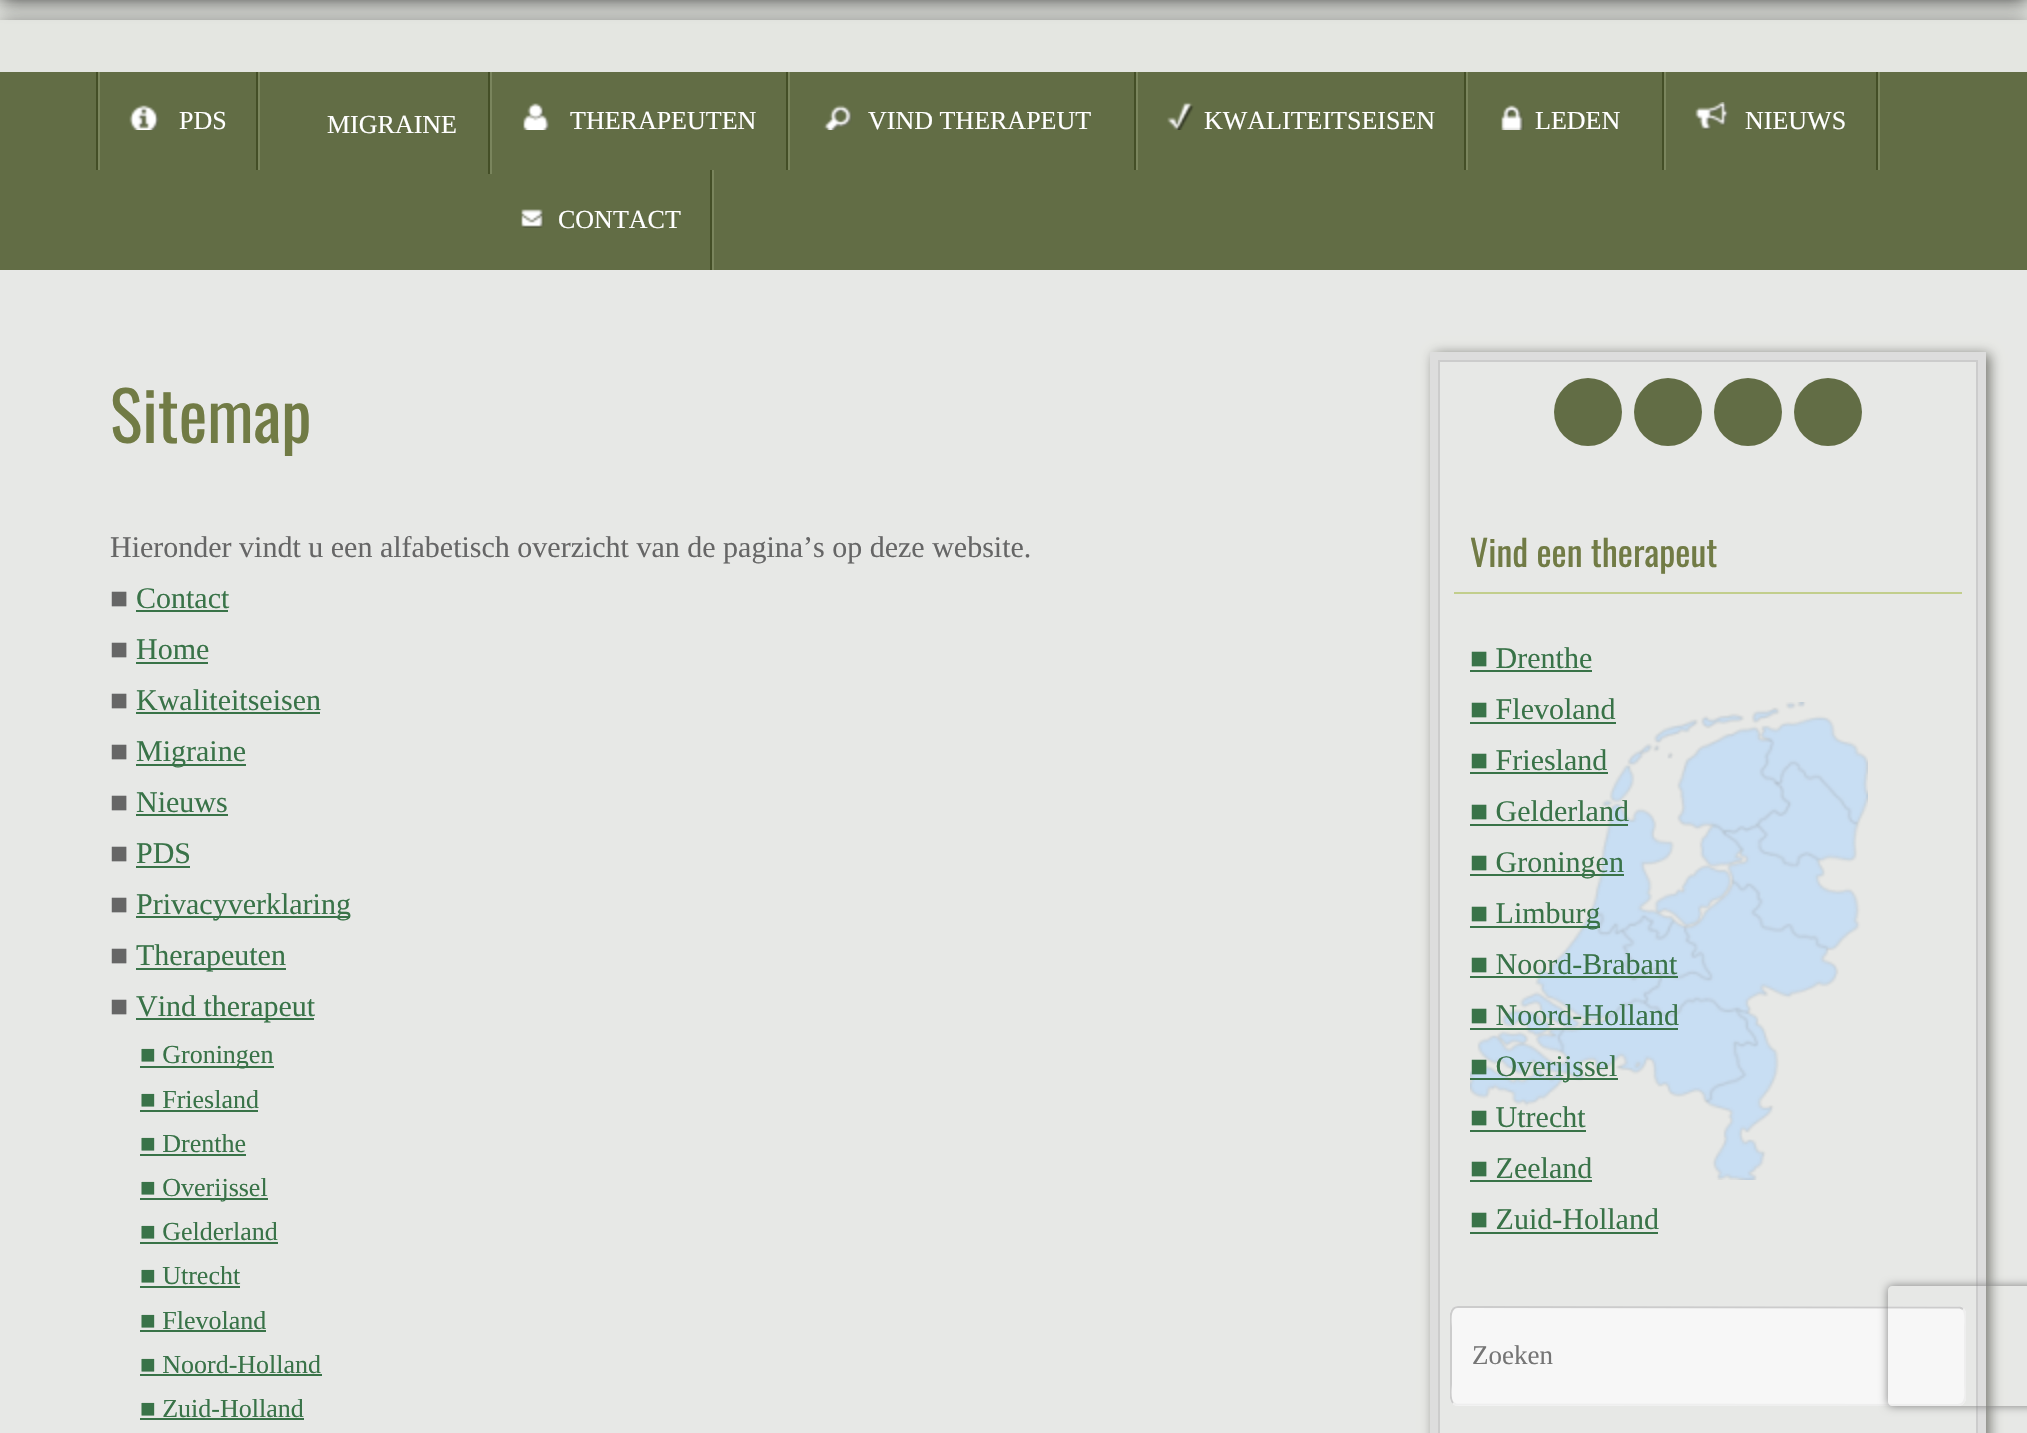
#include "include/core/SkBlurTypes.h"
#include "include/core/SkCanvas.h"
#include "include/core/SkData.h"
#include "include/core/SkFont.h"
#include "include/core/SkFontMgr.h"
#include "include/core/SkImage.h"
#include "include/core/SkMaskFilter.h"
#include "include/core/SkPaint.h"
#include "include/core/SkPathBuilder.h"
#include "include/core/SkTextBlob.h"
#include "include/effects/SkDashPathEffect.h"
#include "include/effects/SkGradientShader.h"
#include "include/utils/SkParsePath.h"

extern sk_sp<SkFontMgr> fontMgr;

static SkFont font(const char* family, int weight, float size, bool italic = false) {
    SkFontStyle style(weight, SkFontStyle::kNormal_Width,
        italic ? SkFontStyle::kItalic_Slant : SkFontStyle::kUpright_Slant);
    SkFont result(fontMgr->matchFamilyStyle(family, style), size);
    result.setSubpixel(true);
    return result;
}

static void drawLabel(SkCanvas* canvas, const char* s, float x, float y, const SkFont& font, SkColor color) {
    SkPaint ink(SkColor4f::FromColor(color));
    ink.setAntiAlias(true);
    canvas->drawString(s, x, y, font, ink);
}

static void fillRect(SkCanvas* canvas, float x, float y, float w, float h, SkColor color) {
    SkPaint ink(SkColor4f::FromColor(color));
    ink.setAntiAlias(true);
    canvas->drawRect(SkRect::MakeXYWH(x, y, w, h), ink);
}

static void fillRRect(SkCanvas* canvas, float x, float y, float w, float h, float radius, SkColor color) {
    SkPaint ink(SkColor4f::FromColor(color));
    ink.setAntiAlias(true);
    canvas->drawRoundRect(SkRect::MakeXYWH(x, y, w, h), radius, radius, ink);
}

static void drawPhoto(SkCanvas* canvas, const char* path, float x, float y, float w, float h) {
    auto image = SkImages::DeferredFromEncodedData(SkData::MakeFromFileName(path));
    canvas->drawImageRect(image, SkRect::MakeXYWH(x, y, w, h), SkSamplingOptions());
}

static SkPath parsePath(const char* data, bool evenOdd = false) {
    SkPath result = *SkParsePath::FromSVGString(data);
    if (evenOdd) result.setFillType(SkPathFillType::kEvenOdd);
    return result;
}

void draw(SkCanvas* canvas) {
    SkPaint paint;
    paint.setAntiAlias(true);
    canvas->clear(0xFFE4E6E1);
    paint.setColor(0xCC000000);
    paint.setMaskFilter(SkMaskFilter::MakeBlur(kNormal_SkBlurStyle, 10));
    canvas->drawRect(SkRect::MakeXYWH(0, -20, 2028, 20), paint);
    paint.setMaskFilter(nullptr);
    canvas->save();
    canvas->clipRect(SkRect::MakeXYWH(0, 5, 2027, 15));
    paint.setColor(0x66000000);
    paint.setMaskFilter(SkMaskFilter::MakeBlur(kNormal_SkBlurStyle, 9));
    canvas->drawRect(SkRect::MakeXYWH(0, 20, 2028, 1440), paint);
    paint.setMaskFilter(nullptr);
    canvas->restore();
    fillRect(canvas, 0, 72, 2027, 198, 0xFF626D45);
    fillRect(canvas, 98, 72, 2, 98, 0xFF7A855D);
    fillRect(canvas, 96, 72, 2, 98, 0xFF444F27);
    fillRect(canvas, 258, 72, 2, 98, 0xFF7A855D);
    fillRect(canvas, 256, 72, 2, 98, 0xFF444F27);
    drawPhoto(canvas, "assets/img1.png", 129, 105, 30, 25);
    SkFont font1 = font("Liberation Serif", 400, 26);
    drawLabel(canvas, "PDS", 179, 129, font1, 0xFFFFFFFF);
    fillRect(canvas, 490, 72, 2, 102, 0xFF7A855D);
    fillRect(canvas, 488, 72, 2, 102, 0xFF444F27);
    drawLabel(canvas, "MIGRAINE", 327, 133, font1, 0xFFFFFFFF);
    fillRect(canvas, 788, 72, 2, 98, 0xFF7A855D);
    fillRect(canvas, 786, 72, 2, 98, 0xFF444F27);
    drawPhoto(canvas, "assets/img2.png", 523, 103, 26, 27);
    drawLabel(canvas, "THERAPEUTEN", 570, 129, font1, 0xFFFFFFFF);
    fillRect(canvas, 1136, 72, 2, 98, 0xFF7A855D);
    fillRect(canvas, 1134, 72, 2, 98, 0xFF444F27);
    drawPhoto(canvas, "assets/img3.png", 823, 105, 29, 25);
    drawLabel(canvas, "VIND THERAPEUT", 868, 129, font1, 0xFFFFFFFF);
    fillRect(canvas, 1466, 72, 2, 98, 0xFF7A855D);
    fillRect(canvas, 1464, 72, 2, 98, 0xFF444F27);
    drawPhoto(canvas, "assets/img4.png", 1167, 102, 27, 28);
    drawLabel(canvas, "KWALITEITSEISEN", 1204, 129, font1, 0xFFFFFFFF);
    fillRect(canvas, 1664, 72, 2, 98, 0xFF7A855D);
    fillRect(canvas, 1662, 72, 2, 98, 0xFF444F27);
    drawPhoto(canvas, "assets/img5.png", 1501, 105, 23, 25);
    drawLabel(canvas, "LEDEN", 1535, 129, font1, 0xFFFFFFFF);
    fillRect(canvas, 1878, 72, 2, 98, 0xFF7A855D);
    fillRect(canvas, 1876, 72, 2, 98, 0xFF444F27);
    drawPhoto(canvas, "assets/img6.png", 1695, 102, 34, 28);
    drawLabel(canvas, "NIEUWS", 1745, 129, font1, 0xFFFFFFFF);
    fillRect(canvas, 712, 170, 2, 100, 0xFF7A855D);
    fillRect(canvas, 710, 170, 2, 100, 0xFF444F27);
    drawPhoto(canvas, "assets/img7.png", 521, 209, 23, 19);
    drawLabel(canvas, "CONTACT", 558, 228, font1, 0xFFFFFFFF);
    fillRect(canvas, 0, 270, 2027, 1163, 0xFFE7E8E6);
    SkFont font2 = font("Oswald", 400, 68);
    drawLabel(canvas, "Sitemap", 110, 443, font2, 0xFF717B45);
    SkFont font3 = font("Liberation Serif", 400, 30);
    drawLabel(canvas, "Hieronder vindt u een alfabetisch overzicht van de pagina’s op deze website.", 110, 557, font3, 0xFF666666);
    drawLabel(canvas, "■", 110, 608, font3, 0xFF666666);
    drawLabel(canvas, "Contact", 136, 608, font3, 0xFF397348);
    fillRect(canvas, 136, 610, 92, 2, 0xFF397348);
    drawLabel(canvas, "■", 110, 659, font3, 0xFF666666);
    drawLabel(canvas, "Home", 136, 659, font3, 0xFF397348);
    fillRect(canvas, 136, 662, 72, 2, 0xFF397348);
    drawLabel(canvas, "■", 110, 710, font3, 0xFF666666);
    drawLabel(canvas, "Kwaliteitseisen", 136, 710, font3, 0xFF397348);
    fillRect(canvas, 136, 712, 184, 2, 0xFF397348);
    drawLabel(canvas, "■", 110, 761, font3, 0xFF666666);
    fillRect(canvas, 136, 764, 110, 2, 0xFF397348);
    drawLabel(canvas, "Migraine", 136, 761, font3, 0xFF397348);
    drawLabel(canvas, "■", 110, 812, font3, 0xFF666666);
    drawLabel(canvas, "Nieuws", 136, 812, font3, 0xFF397348);
    fillRect(canvas, 136, 814, 92, 2, 0xFF397348);
    drawLabel(canvas, "■", 110, 863, font3, 0xFF666666);
    drawLabel(canvas, "PDS", 136, 863, font3, 0xFF397348);
    fillRect(canvas, 136, 866, 54, 2, 0xFF397348);
    drawLabel(canvas, "■", 110, 914, font3, 0xFF666666);
    fillRect(canvas, 136, 916, 214, 2, 0xFF397348);
    drawLabel(canvas, "Privacyverklaring", 136, 914, font3, 0xFF397348);
    drawLabel(canvas, "■", 110, 965, font3, 0xFF666666);
    fillRect(canvas, 136, 968, 150, 2, 0xFF397348);
    drawLabel(canvas, "Therapeuten", 136, 965, font3, 0xFF397348);
    drawLabel(canvas, "■", 110, 1016, font3, 0xFF666666);
    fillRect(canvas, 136, 1018, 178, 2, 0xFF397348);
    drawLabel(canvas, "Vind therapeut", 136, 1016, font3, 0xFF397348);
    fillRect(canvas, 140, 1066, 134, 2, 0xFF397348);
    drawLabel(canvas, "■ Groningen", 140, 1063, font1, 0xFF397348);
    drawLabel(canvas, "■ Friesland", 140, 1108, font1, 0xFF397348);
    fillRect(canvas, 140, 1110, 118, 2, 0xFF397348);
    drawLabel(canvas, "■ Drenthe", 140, 1152, font1, 0xFF397348);
    fillRect(canvas, 140, 1154, 106, 2, 0xFF397348);
    fillRect(canvas, 140, 1198, 128, 2, 0xFF397348);
    drawLabel(canvas, "■ Overijssel", 140, 1196, font1, 0xFF397348);
    drawLabel(canvas, "■ Gelderland", 140, 1240, font1, 0xFF397348);
    fillRect(canvas, 140, 1242, 138, 2, 0xFF397348);
    drawLabel(canvas, "■ Utrecht", 140, 1284, font1, 0xFF397348);
    fillRect(canvas, 140, 1286, 100, 2, 0xFF397348);
    drawLabel(canvas, "■ Flevoland", 140, 1329, font1, 0xFF397348);
    fillRect(canvas, 140, 1330, 126, 2, 0xFF397348);
    drawLabel(canvas, "■ Noord-Holland", 140, 1373, font1, 0xFF397348);
    fillRect(canvas, 140, 1374, 182, 2, 0xFF397348);
    drawLabel(canvas, "■ Zuid-Holland", 140, 1417, font1, 0xFF397348);
    fillRect(canvas, 140, 1418, 164, 2, 0xFF397348);
    canvas->save();
    canvas->clipPath(parsePath("M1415 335H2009V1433H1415ZM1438 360H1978V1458H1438Z", true), true);
    paint.setColor(0x800A0A00);
    paint.setMaskFilter(SkMaskFilter::MakeBlur(kNormal_SkBlurStyle, 6));
    canvas->drawRect(SkRect::MakeXYWH(1434, 354, 556, 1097), paint);
    paint.setMaskFilter(nullptr);
    canvas->restore();
    paint.setStroke(true);
    paint.setStrokeWidth(8);
    paint.setColor(0xFFDDDDDD);
    canvas->drawRect(SkRect::MakeXYWH(1434, 356, 548, 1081), paint);
    paint.setStrokeWidth(2);
    paint.setColor(0xFFCCCCCC);
    canvas->drawRect(SkRect::MakeXYWH(1439, 361, 538, 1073), paint);
    paint.setStroke(false);
    paint.setColor(0xFF626D45);
    canvas->drawCircle(1588, 412, 34, paint);
    canvas->drawCircle(1668, 412, 34, paint);
    canvas->drawCircle(1748, 412, 34, paint);
    canvas->drawCircle(1828, 412, 34, paint);
    fillRect(canvas, 1454, 592, 508, 2, 0xFFC2CE8C);
    SkFont font4 = font("Oswald", 400, 36);
    drawLabel(canvas, "Vind een therapeut", 1470, 567, font4, 0xFF717B45);
    drawPhoto(canvas, "assets/img8.png", 1470, 702, 398, 478);
    drawLabel(canvas, "■ Drenthe", 1470, 668, font3, 0xFF397348);
    fillRect(canvas, 1470, 670, 122, 2, 0xFF397348);
    drawLabel(canvas, "■ Flevoland", 1470, 719, font3, 0xFF397348);
    fillRect(canvas, 1470, 722, 146, 2, 0xFF397348);
    drawLabel(canvas, "■ Friesland", 1470, 770, font3, 0xFF397348);
    fillRect(canvas, 1470, 772, 138, 2, 0xFF397348);
    drawLabel(canvas, "■ Gelderland", 1470, 821, font3, 0xFF397348);
    fillRect(canvas, 1470, 824, 158, 2, 0xFF397348);
    fillRect(canvas, 1470, 874, 154, 2, 0xFF397348);
    drawLabel(canvas, "■ Groningen", 1470, 872, font3, 0xFF397348);
    fillRect(canvas, 1470, 926, 130, 2, 0xFF397348);
    drawLabel(canvas, "■ Limburg", 1470, 923, font3, 0xFF397348);
    drawLabel(canvas, "■ Noord-Brabant", 1470, 974, font3, 0xFF397348);
    fillRect(canvas, 1470, 976, 208, 2, 0xFF397348);
    drawLabel(canvas, "■ Noord-Holland", 1470, 1025, font3, 0xFF397348);
    fillRect(canvas, 1470, 1028, 208, 2, 0xFF397348);
    fillRect(canvas, 1470, 1078, 148, 2, 0xFF397348);
    drawLabel(canvas, "■ Overijssel", 1470, 1076, font3, 0xFF397348);
    drawLabel(canvas, "■ Utrecht", 1470, 1127, font3, 0xFF397348);
    fillRect(canvas, 1470, 1130, 116, 2, 0xFF397348);
    drawLabel(canvas, "■ Zeeland", 1470, 1178, font3, 0xFF397348);
    fillRect(canvas, 1470, 1180, 122, 2, 0xFF397348);
    drawLabel(canvas, "■ Zuid-Holland", 1470, 1229, font3, 0xFF397348);
    fillRect(canvas, 1470, 1232, 188, 2, 0xFF397348);
    fillRRect(canvas, 1450, 1306, 516, 100, 8, 0xFFF7F7F7);
    canvas->save();
    canvas->clipRect(SkRect::MakeXYWH(1450, 1306, 516, 100));
    paint.setStroke(true);
    paint.setColor(0xFFEEEEEE);
    canvas->drawPath(parsePath("M1963 1309C1967 1313.5 1965 1325 1965 1328V1384C1965 1389 1968 1405 1958 1405L1456 1404.5L1453 1403"), paint);
    paint.setColor(0xFFCCCCCC);
    canvas->drawPath(parsePath("M1453 1403C1449 1398.5 1451 1387 1451 1384V1328C1451 1323 1448 1307 1458 1307L1960 1307.5L1963 1309"), paint);
    canvas->restore();
    SkFont font5 = font("Liberation Serif", 400, 27);
    drawLabel(canvas, "Zoeken", 1472, 1364, font5, 0xFF757575);
    canvas->save();
    canvas->clipPath(parsePath("M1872 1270H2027V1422H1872ZM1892 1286H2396C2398 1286 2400 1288 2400 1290V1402C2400 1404 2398 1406 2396 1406H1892C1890 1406 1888 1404 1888 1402V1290C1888 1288 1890 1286 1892 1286Z", true), true);
    paint.setStroke(false);
    paint.setColor(0xFF808080);
    paint.setMaskFilter(SkMaskFilter::MakeBlur(kNormal_SkBlurStyle, 5));
    canvas->drawRoundRect(SkRect::MakeXYWH(1888, 1286, 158, 120), 4, 4, paint);
    paint.setMaskFilter(nullptr);
    canvas->restore();
}
